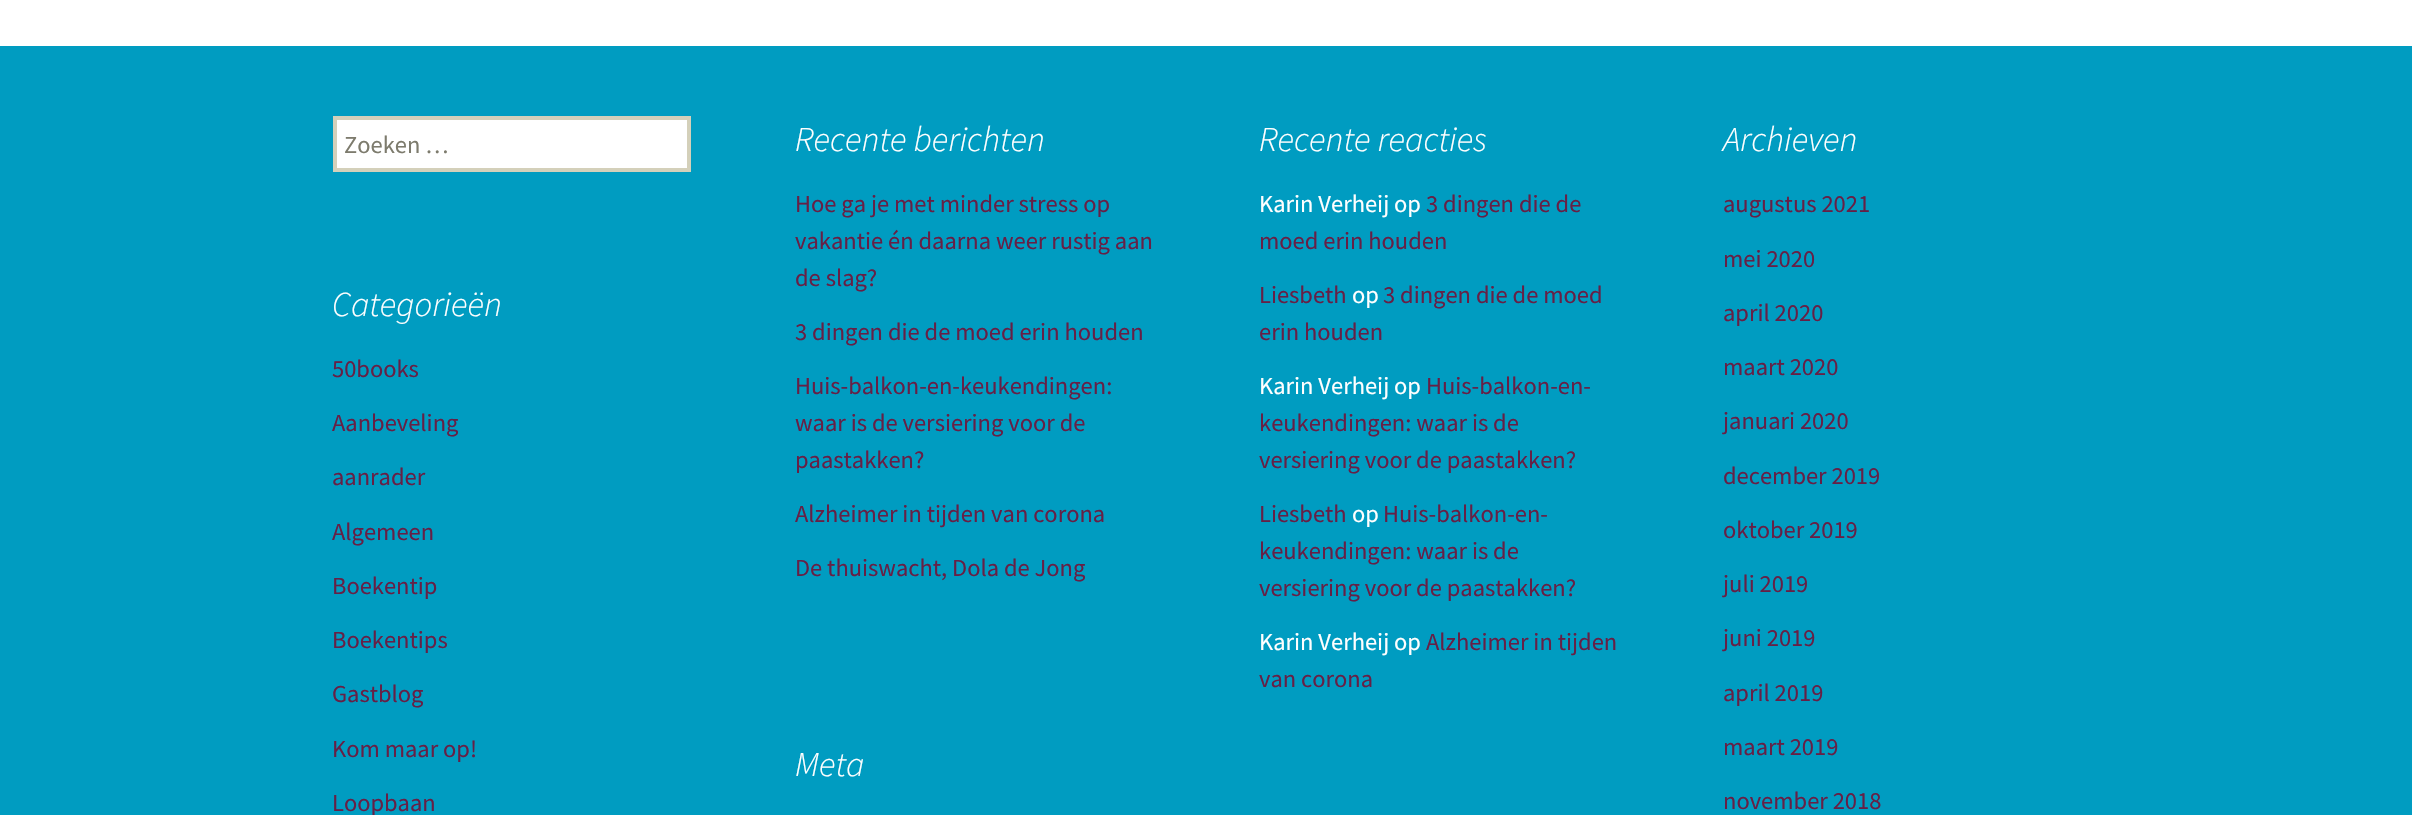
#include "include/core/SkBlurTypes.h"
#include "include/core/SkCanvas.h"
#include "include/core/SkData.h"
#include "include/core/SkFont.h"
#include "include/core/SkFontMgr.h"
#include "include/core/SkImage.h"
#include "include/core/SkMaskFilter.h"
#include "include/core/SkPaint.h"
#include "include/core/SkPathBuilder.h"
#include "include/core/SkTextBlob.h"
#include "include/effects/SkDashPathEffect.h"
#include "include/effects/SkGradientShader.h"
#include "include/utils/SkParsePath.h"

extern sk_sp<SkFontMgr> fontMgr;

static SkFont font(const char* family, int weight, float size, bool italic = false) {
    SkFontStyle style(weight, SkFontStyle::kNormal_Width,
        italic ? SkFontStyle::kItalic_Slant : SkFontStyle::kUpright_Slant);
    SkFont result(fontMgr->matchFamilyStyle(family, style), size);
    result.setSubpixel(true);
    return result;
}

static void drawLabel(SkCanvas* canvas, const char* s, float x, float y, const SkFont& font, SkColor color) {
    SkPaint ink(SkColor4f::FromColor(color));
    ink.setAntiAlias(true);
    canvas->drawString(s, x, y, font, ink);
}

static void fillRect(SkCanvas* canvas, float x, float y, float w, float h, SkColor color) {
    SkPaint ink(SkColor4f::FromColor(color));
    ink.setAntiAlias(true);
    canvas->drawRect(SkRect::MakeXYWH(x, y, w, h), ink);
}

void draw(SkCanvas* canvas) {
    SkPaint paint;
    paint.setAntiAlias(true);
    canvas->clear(0xFFFFFFFF);
    fillRect(canvas, 0, 46, 2412, 769, 0xFF009CC1);
    paint.setColor(0xFFFFFFFF);
    canvas->drawRect(SkRect::MakeXYWH(335, 118, 354, 52), paint);
    paint.setStroke(true);
    paint.setStrokeWidth(4);
    paint.setColor(0xFFD4D0BA);
    canvas->drawRect(SkRect::MakeXYWH(335, 118, 354, 52), paint);
    SkFont font1 = font("Source Sans Pro", 400, 24.5f);
    drawLabel(canvas, "Zoeken …", 344, 153, font1, 0xFF7D7B6D);
    SkFont font2 = font("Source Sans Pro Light", 300, 35, true);
    drawLabel(canvas, "Recente berichten", 795, 151, font2, 0xFFFFFFFF);
    drawLabel(canvas, "Hoe ga je met minder stress op", 795, 212, font1, 0xFF662046);
    drawLabel(canvas, "vakantie én daarna weer rustig aan", 795, 249, font1, 0xFF662046);
    drawLabel(canvas, "de slag?", 795, 286, font1, 0xFF662046);
    drawLabel(canvas, "3 dingen die de moed erin houden", 795, 340, font1, 0xFF662046);
    drawLabel(canvas, "Huis-balkon-en-keukendingen:", 795, 394, font1, 0xFF662046);
    drawLabel(canvas, "waar is de versiering voor de", 795, 431, font1, 0xFF662046);
    drawLabel(canvas, "paastakken?", 795, 468, font1, 0xFF662046);
    drawLabel(canvas, "Alzheimer in tijden van corona", 795, 522, font1, 0xFF662046);
    drawLabel(canvas, "De thuiswacht, Dola de Jong", 795, 576, font1, 0xFF662046);
    drawLabel(canvas, "Recente reacties", 1259, 151, font2, 0xFFFFFFFF);
    drawLabel(canvas, "Karin Verheij op", 1259, 212, font1, 0xFFFFFFFF);
    drawLabel(canvas, "3 dingen die de", 1426, 212, font1, 0xFF662046);
    drawLabel(canvas, "moed erin houden", 1259, 249, font1, 0xFF662046);
    drawLabel(canvas, "Liesbeth", 1259, 303, font1, 0xFF662046);
    drawLabel(canvas, "op", 1352, 303, font1, 0xFFFFFFFF);
    drawLabel(canvas, "3 dingen die de moed", 1383, 303, font1, 0xFF662046);
    drawLabel(canvas, "erin houden", 1259, 340, font1, 0xFF662046);
    drawLabel(canvas, "Karin Verheij op", 1259, 394, font1, 0xFFFFFFFF);
    drawLabel(canvas, "Huis-balkon-en-", 1426, 394, font1, 0xFF662046);
    drawLabel(canvas, "keukendingen: waar is de", 1259, 431, font1, 0xFF662046);
    drawLabel(canvas, "versiering voor de paastakken?", 1259, 468, font1, 0xFF662046);
    drawLabel(canvas, "Liesbeth", 1259, 522, font1, 0xFF662046);
    drawLabel(canvas, "op", 1352, 522, font1, 0xFFFFFFFF);
    drawLabel(canvas, "Huis-balkon-en-", 1383, 522, font1, 0xFF662046);
    drawLabel(canvas, "keukendingen: waar is de", 1259, 559, font1, 0xFF662046);
    drawLabel(canvas, "versiering voor de paastakken?", 1259, 596, font1, 0xFF662046);
    drawLabel(canvas, "Karin Verheij op", 1259, 650, font1, 0xFFFFFFFF);
    drawLabel(canvas, "Alzheimer in tijden", 1426, 650, font1, 0xFF662046);
    drawLabel(canvas, "van corona", 1259, 687, font1, 0xFF662046);
    drawLabel(canvas, "Archieven", 1723, 151, font2, 0xFFFFFFFF);
    drawLabel(canvas, "augustus 2021", 1723, 212, font1, 0xFF662046);
    drawLabel(canvas, "mei 2020", 1723, 267, font1, 0xFF662046);
    drawLabel(canvas, "april 2020", 1723, 321, font1, 0xFF662046);
    drawLabel(canvas, "maart 2020", 1723, 375, font1, 0xFF662046);
    drawLabel(canvas, "januari 2020", 1723, 429, font1, 0xFF662046);
    drawLabel(canvas, "december 2019", 1723, 484, font1, 0xFF662046);
    drawLabel(canvas, "oktober 2019", 1723, 538, font1, 0xFF662046);
    drawLabel(canvas, "juli 2019", 1723, 592, font1, 0xFF662046);
    drawLabel(canvas, "juni 2019", 1723, 646, font1, 0xFF662046);
    drawLabel(canvas, "april 2019", 1723, 701, font1, 0xFF662046);
    drawLabel(canvas, "maart 2019", 1723, 755, font1, 0xFF662046);
    drawLabel(canvas, "november 2018", 1723, 809, font1, 0xFF662046);
    drawLabel(canvas, "Categorieën", 332, 316, font2, 0xFFFFFFFF);
    drawLabel(canvas, "50books", 332, 377, font1, 0xFF662046);
    drawLabel(canvas, "Aanbeveling", 332, 431, font1, 0xFF662046);
    drawLabel(canvas, "aanrader", 332, 485, font1, 0xFF662046);
    drawLabel(canvas, "Algemeen", 332, 540, font1, 0xFF662046);
    drawLabel(canvas, "Boekentip", 332, 594, font1, 0xFF662046);
    drawLabel(canvas, "Boekentips", 332, 648, font1, 0xFF662046);
    drawLabel(canvas, "Gastblog", 332, 702, font1, 0xFF662046);
    drawLabel(canvas, "Kom maar op!", 332, 757, font1, 0xFF662046);
    drawLabel(canvas, "Loopbaan", 332, 811, font1, 0xFF662046);
    drawLabel(canvas, "Meta", 795, 776, font2, 0xFFFFFFFF);
}
